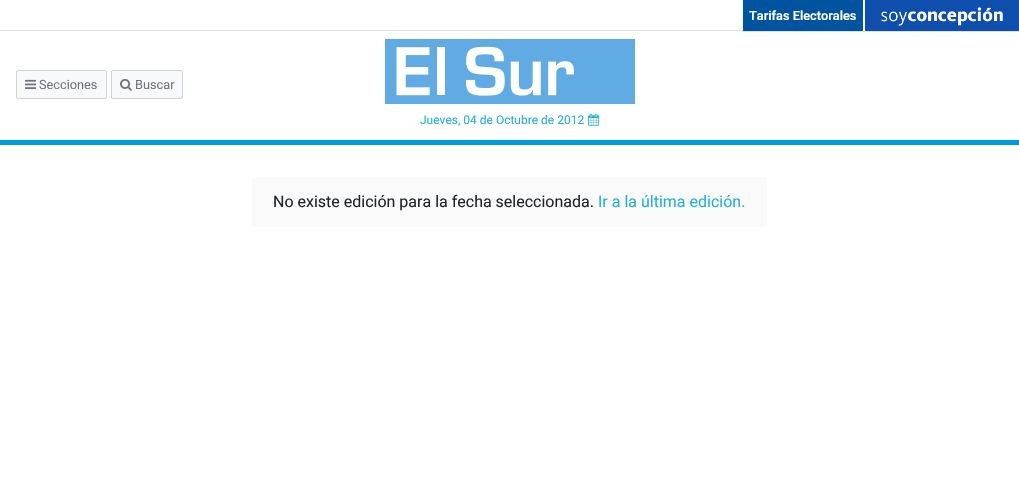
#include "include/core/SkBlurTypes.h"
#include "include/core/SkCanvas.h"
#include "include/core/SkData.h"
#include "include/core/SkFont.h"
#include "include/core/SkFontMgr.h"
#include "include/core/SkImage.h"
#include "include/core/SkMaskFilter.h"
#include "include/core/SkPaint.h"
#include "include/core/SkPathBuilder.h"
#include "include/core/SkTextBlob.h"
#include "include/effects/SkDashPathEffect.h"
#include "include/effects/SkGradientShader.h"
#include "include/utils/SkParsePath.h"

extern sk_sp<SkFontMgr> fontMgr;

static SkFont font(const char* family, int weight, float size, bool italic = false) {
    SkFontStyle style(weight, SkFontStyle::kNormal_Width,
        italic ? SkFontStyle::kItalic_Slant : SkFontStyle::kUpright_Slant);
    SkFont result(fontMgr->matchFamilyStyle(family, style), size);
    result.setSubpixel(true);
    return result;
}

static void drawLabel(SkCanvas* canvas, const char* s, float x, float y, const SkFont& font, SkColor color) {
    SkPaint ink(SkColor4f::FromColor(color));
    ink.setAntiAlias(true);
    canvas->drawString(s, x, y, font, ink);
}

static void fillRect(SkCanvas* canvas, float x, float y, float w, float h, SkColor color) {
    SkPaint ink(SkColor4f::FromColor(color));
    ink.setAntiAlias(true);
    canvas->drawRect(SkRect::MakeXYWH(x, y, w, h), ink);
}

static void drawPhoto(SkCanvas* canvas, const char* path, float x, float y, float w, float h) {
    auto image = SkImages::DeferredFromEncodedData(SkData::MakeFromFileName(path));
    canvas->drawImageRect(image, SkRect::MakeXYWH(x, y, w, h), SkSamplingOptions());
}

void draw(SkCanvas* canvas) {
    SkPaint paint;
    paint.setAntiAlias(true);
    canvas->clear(0xFFFFFFFF);
    fillRect(canvas, 0, 30, 743, 1, 0xFFDEE2E6);
    fillRect(canvas, 743, 31, 276, 1, 0xFFDEE2E6);
    fillRect(canvas, 743, 0, 120, 31, 0xFF00549F);
    SkFont font1 = font("Roboto", 600, 12.75f);
    drawLabel(canvas, "Tarifas Electorales", 749, 20, font1, 0xFFFFFFFF);
    fillRect(canvas, 865, 0, 154, 31, 0xFF0E4EAD);
    drawPhoto(canvas, "assets/img1.png", 881, 7, 122, 19);
    fillRect(canvas, 0, 140, 1019, 5, 0xFF009BDB);
    paint.setColor(0xFFF8F9FA);
    canvas->drawRoundRect(SkRect::MakeXYWH(16.5f, 70.5f, 90, 28), 1.5f, 1.5f, paint);
    paint.setStroke(true);
    paint.setStrokeWidth(1);
    paint.setColor(0xFFCED4DA);
    canvas->drawRoundRect(SkRect::MakeXYWH(16.5f, 70.5f, 90, 28), 1.5f, 1.5f, paint);
    drawPhoto(canvas, "assets/img2.png", 25, 79, 11, 10);
    SkFont font2 = font("Roboto", 400, 12.75f);
    drawLabel(canvas, "Secciones", 39, 89, font2, 0xFF6C757D);
    paint.setStroke(false);
    paint.setColor(0xFFF8F9FA);
    canvas->drawRoundRect(SkRect::MakeXYWH(111.5f, 70.5f, 71, 28), 1.5f, 1.5f, paint);
    paint.setStroke(true);
    paint.setColor(0xFFCED4DA);
    canvas->drawRoundRect(SkRect::MakeXYWH(111.5f, 70.5f, 71, 28), 1.5f, 1.5f, paint);
    drawPhoto(canvas, "assets/img3.png", 120, 79, 12, 12);
    drawLabel(canvas, "Buscar", 135, 89, font2, 0xFF6C757D);
    drawPhoto(canvas, "assets/img4.png", 385, 39, 250, 65);
    SkFont font3 = font("Roboto", 400, 12);
    drawLabel(canvas, "Jueves, 04 de Octubre de 2012", 420, 124, font3, 0xFF23AFE2);
    drawPhoto(canvas, "assets/img5.png", 588, 113, 12, 13);
    fillRect(canvas, 252, 177, 515, 50, 0xFFFAFAFA);
    SkFont font4 = font("Roboto", 400, 16);
    drawLabel(canvas, "No existe edición para la fecha seleccionada.", 273, 207, font4, 0xFF212529);
    drawLabel(canvas, "Ir a la última edición.", 598, 207, font4, 0xFF23AFE2);
}
